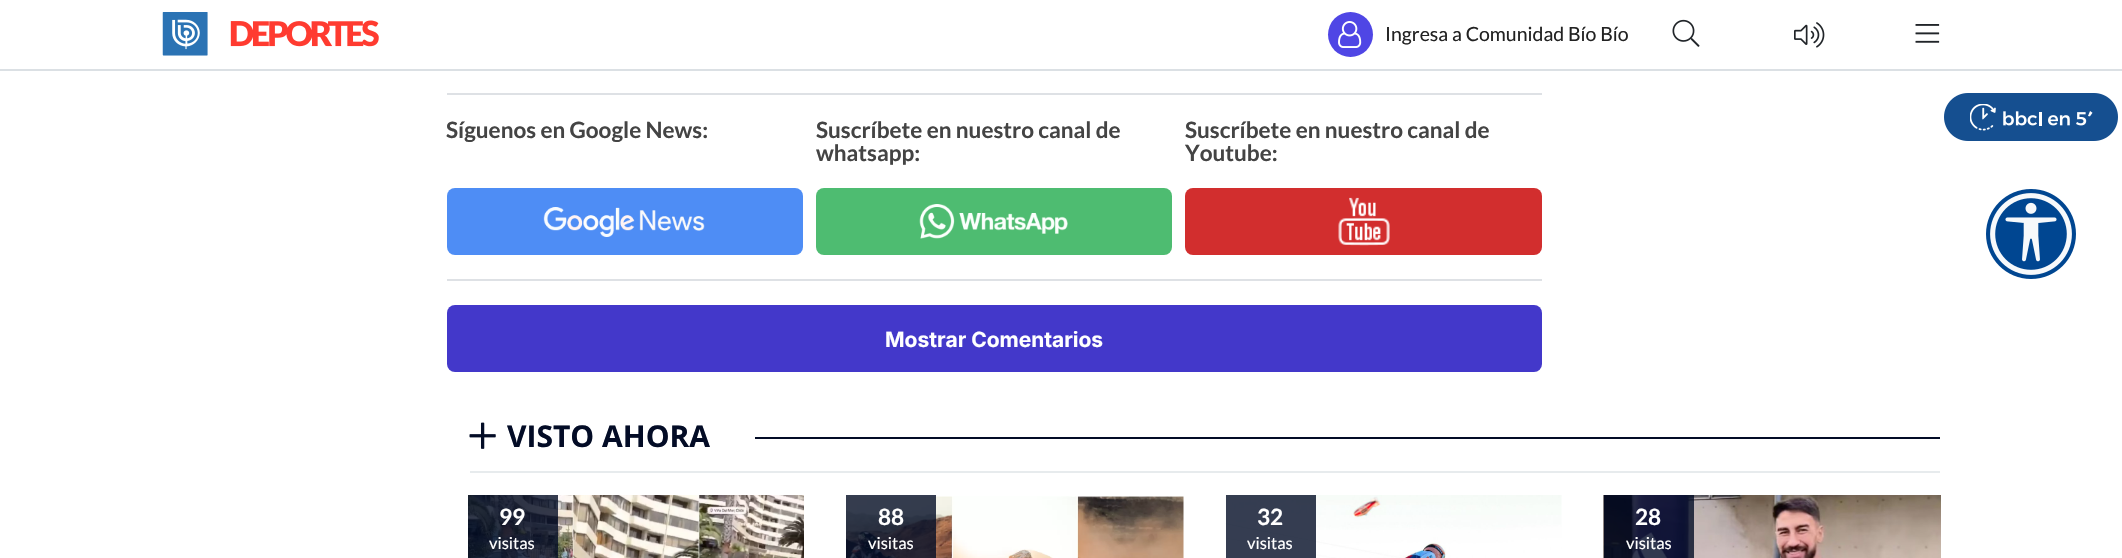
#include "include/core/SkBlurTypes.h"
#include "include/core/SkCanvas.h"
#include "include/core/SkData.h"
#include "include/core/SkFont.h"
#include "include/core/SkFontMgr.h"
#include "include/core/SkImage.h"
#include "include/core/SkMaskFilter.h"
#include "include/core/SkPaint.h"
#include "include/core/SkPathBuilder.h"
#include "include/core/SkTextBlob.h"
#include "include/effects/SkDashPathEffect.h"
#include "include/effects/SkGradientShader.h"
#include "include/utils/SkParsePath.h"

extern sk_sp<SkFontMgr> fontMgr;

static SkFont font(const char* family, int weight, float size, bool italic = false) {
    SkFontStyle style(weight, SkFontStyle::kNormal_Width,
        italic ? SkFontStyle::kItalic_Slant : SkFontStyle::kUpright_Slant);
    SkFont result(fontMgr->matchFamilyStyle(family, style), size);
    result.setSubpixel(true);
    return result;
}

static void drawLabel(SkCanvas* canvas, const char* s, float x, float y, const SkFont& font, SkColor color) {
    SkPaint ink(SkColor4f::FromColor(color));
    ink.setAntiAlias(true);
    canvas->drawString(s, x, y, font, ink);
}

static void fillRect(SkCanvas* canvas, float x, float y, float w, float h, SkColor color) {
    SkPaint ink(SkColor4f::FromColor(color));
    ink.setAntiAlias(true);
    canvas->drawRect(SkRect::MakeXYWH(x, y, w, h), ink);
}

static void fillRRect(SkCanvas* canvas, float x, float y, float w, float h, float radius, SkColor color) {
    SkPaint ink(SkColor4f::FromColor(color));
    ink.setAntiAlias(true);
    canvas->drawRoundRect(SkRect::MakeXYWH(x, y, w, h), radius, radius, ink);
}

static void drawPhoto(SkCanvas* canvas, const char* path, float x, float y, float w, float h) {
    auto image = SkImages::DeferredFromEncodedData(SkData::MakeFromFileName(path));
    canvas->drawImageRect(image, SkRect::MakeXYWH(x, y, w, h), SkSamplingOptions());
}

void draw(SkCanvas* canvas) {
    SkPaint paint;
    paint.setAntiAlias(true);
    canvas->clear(0xFFFFFFFF);
    fillRect(canvas, 0, 69, 2122, 2, 0xFFDBE0E4);
    drawPhoto(canvas, "assets/img1.png", 162, 12, 217, 44);
    paint.setColor(0xFF4F46E5);
    canvas->drawCircle(1350.5f, 34.5f, 22.5f, paint);
    drawPhoto(canvas, "assets/img2.png", 1338, 21, 24, 27);
    SkFont font1 = font("Lato", 400, 19.5f);
    drawLabel(canvas, "Ingresa a Comunidad Bío Bío", 1385, 41, font1, 0xFF222222);
    drawPhoto(canvas, "assets/img3.png", 1672, 19, 28, 28);
    drawPhoto(canvas, "assets/img4.png", 1794, 22, 31, 26);
    drawPhoto(canvas, "assets/img5.png", 1915, 24, 25, 19);
    drawPhoto(canvas, "assets/img6.png", 1944, 93, 174, 48);
    drawPhoto(canvas, "assets/img7.png", 1986, 189, 90, 90);
    fillRect(canvas, 447, 93, 1095, 2, 0xFFDEE1E5);
    fillRect(canvas, 447, 279, 1095, 2, 0xFFDEE1E5);
    SkFont font2 = font("Lato", 700, 22.5f);
    drawLabel(canvas, "Síguenos en Google News:", 446, 138, font2, 0xFF444444);
    fillRRect(canvas, 447, 188, 356, 67, 8, 0xFF4E8DF5);
    drawPhoto(canvas, "assets/img8.png", 543, 207, 162, 30);
    drawLabel(canvas, "Suscríbete en nuestro canal de", 816, 138, font2, 0xFF444444);
    drawLabel(canvas, "whatsapp:", 816, 161, font2, 0xFF444444);
    fillRRect(canvas, 816, 188, 356, 67, 8, 0xFF4EBC71);
    drawPhoto(canvas, "assets/img9.png", 919, 204, 149, 35);
    drawLabel(canvas, "Suscríbete en nuestro canal de", 1185, 138, font2, 0xFF444444);
    drawLabel(canvas, "Youtube:", 1185, 161, font2, 0xFF444444);
    fillRRect(canvas, 1185, 188, 357, 67, 8, 0xFFD22E2E);
    drawPhoto(canvas, "assets/img10.png", 1338, 197, 52, 49);
    fillRRect(canvas, 447, 305, 1095, 67, 8, 0xFF4338CA);
    SkFont font3 = font("Inter", 700, 21);
    drawLabel(canvas, "Mostrar Comentarios", 885, 347, font3, 0xFFFFFFFF);
    fillRect(canvas, 470, 471, 1470, 2, 0xFFE7EBED);
    drawPhoto(canvas, "assets/img11.png", 469, 422, 27, 27);
    SkFont font4 = font("Open Sans", 700, 30);
    drawLabel(canvas, "VISTO AHORA", 507, 447, font4, 0xFF030C26);
    fillRect(canvas, 755, 437, 1185, 2, 0xFF030C26);
    drawPhoto(canvas, "assets/img12.png", 468, 495, 336, 63);
    fillRect(canvas, 468, 495, 90, 63, 0xCC030C26);
    drawLabel(canvas, "99", 499, 525, font2, 0xFFFFFFFF);
    SkFont font5 = font("Lato", 400, 16.5f);
    drawLabel(canvas, "visitas", 489, 549, font5, 0xFFFFFFFF);
    drawPhoto(canvas, "assets/img13.png", 846, 496, 338, 62);
    fillRect(canvas, 846, 495, 90, 63, 0xCC030C26);
    drawLabel(canvas, "88", 878, 525, font2, 0xFFFFFFFF);
    drawLabel(canvas, "visitas", 868, 549, font5, 0xFFFFFFFF);
    drawPhoto(canvas, "assets/img14.png", 1225, 495, 337, 63);
    fillRect(canvas, 1226, 495, 90, 63, 0xCC030C26);
    drawLabel(canvas, "32", 1257, 525, font2, 0xFFFFFFFF);
    drawLabel(canvas, "visitas", 1247, 549, font5, 0xFFFFFFFF);
    drawPhoto(canvas, "assets/img15.png", 1603, 495, 338, 63);
    fillRect(canvas, 1604, 495, 90, 63, 0xCC030C26);
    drawLabel(canvas, "28", 1635, 525, font2, 0xFFFFFFFF);
    drawLabel(canvas, "visitas", 1626, 549, font5, 0xFFFFFFFF);
}
